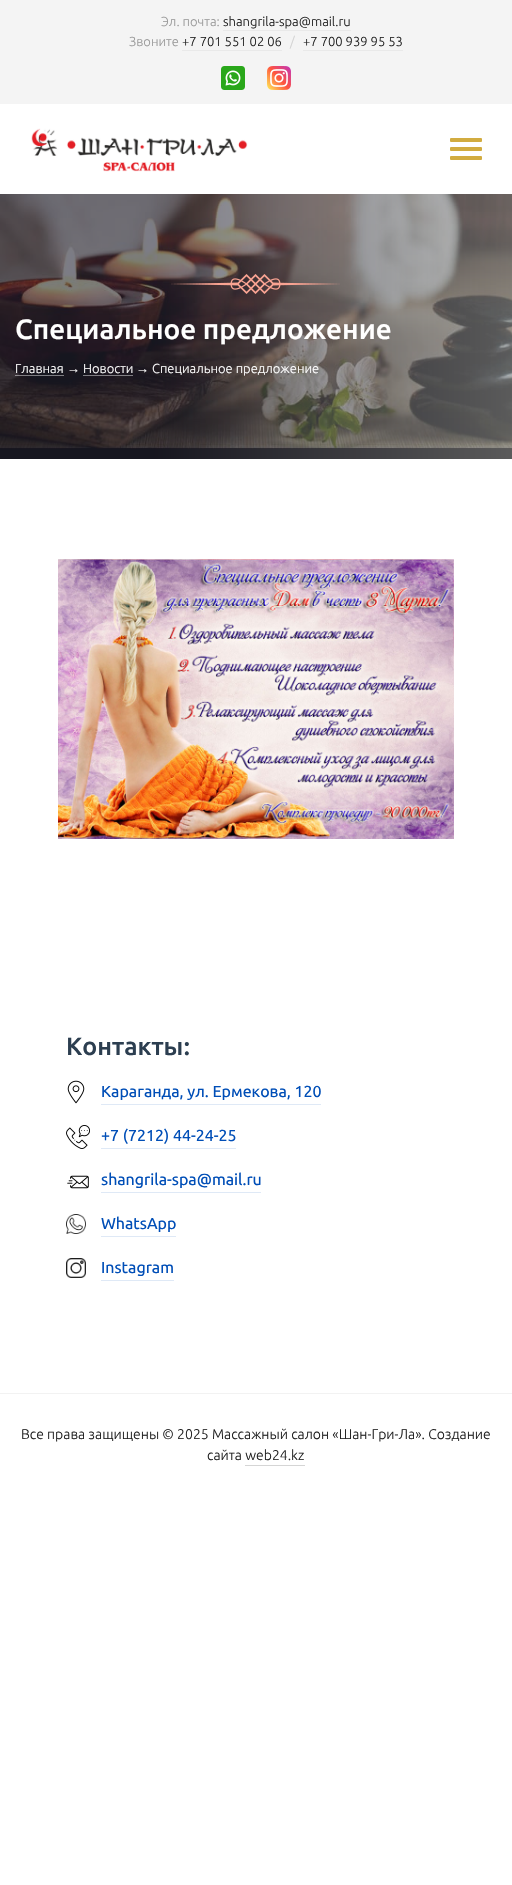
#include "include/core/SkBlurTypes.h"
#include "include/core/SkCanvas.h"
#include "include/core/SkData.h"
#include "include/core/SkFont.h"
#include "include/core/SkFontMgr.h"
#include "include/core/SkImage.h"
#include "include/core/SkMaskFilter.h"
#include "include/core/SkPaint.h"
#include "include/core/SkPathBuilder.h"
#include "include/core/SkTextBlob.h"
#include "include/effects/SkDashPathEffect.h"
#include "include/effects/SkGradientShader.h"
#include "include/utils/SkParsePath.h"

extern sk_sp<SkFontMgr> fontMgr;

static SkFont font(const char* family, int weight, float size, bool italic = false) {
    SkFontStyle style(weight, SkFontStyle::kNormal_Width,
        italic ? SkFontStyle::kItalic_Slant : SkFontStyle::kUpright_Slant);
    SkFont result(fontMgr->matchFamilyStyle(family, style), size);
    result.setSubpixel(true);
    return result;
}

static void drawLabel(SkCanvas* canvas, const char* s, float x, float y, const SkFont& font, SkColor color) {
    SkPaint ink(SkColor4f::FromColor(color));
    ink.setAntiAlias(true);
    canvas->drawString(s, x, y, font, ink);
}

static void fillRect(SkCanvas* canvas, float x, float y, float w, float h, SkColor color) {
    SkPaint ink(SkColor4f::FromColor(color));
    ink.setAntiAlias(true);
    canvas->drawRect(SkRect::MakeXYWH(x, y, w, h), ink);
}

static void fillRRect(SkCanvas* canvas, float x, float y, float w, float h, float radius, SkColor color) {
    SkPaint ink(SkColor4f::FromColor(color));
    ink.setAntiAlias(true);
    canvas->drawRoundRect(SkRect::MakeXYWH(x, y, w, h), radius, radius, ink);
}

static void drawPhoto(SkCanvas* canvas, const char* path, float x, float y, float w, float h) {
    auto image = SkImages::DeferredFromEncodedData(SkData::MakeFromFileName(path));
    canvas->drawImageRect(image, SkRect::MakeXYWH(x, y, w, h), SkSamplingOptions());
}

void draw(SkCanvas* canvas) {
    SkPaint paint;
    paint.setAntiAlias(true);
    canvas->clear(0xFFFFFFFF);
    fillRect(canvas, 0, 0, 512, 104, 0xFFF4F4F4);
    SkFont font1 = font("Ubuntu", 300, 13);
    drawLabel(canvas, "Эл. почта:", 161, 26, font1, 0xFF9A9A9A);
    drawLabel(canvas, "shangrila-spa@mail.ru", 223, 26, font1, 0xFF212121);
    fillRect(canvas, 223, 30, 128, 1, 0xFFE9E9E9);
    drawLabel(canvas, "Звоните", 129, 46, font1, 0xFF9A9A9A);
    drawLabel(canvas, "+7 701 551 02 06", 182, 46, font1, 0xFF212121);
    fillRect(canvas, 182, 50, 100, 1, 0xFFE9E9E9);
    drawLabel(canvas, "/", 290, 46, font1, 0xFFD2D2D2);
    drawLabel(canvas, "+7 700 939 95 53", 303, 46, font1, 0xFF212121);
    fillRect(canvas, 303, 50, 100, 1, 0xFFE9E9E9);
    drawPhoto(canvas, "assets/img1.png", 221, 66, 24, 24);
    drawPhoto(canvas, "assets/img2.png", 267, 66, 24, 24);
    drawPhoto(canvas, "assets/img3.png", 31, 128, 217, 44);
    fillRRect(canvas, 450, 138, 32, 4, 1, 0xFFD2AC40);
    fillRRect(canvas, 450, 147, 32, 4, 1, 0xFFD2AC40);
    fillRRect(canvas, 450, 156, 32, 4, 1, 0xFFD2AC40);
    drawPhoto(canvas, "assets/img4.png", 0, 194, 512, 265);
    drawPhoto(canvas, "assets/img5.png", 171, 274, 169, 20);
    SkFont font2 = font("Ubuntu", 500, 28);
    drawLabel(canvas, "Специальное предложение", 15, 339, font2, 0xFFFFFFFF);
    drawLabel(canvas, "Главная", 15, 373, font1, 0xFFFFFFFF);
    fillRect(canvas, 15, 375, 49, 1, 0x70FFFFFF);
    SkFont font3 = font("Liberation Sans", 400, 13);
    drawLabel(canvas, "→", 67, 373, font3, 0xFFFFFFFF);
    drawLabel(canvas, "Новости", 83, 373, font1, 0xFFFFFFFF);
    fillRect(canvas, 83, 375, 50, 1, 0x70FFFFFF);
    drawLabel(canvas, "→", 136, 373, font3, 0xFFFFFFFF);
    drawLabel(canvas, "Специальное предложение", 152, 373, font1, 0xFFFFFFFF);
    drawPhoto(canvas, "assets/img6.png", 58, 559, 396, 280);
    SkFont font4 = font("Ubuntu", 500, 25);
    drawLabel(canvas, "Контакты:", 66, 1055, font4, 0xFF2C3E50);
    drawPhoto(canvas, "assets/img7.png", 67, 1080, 18, 24);
    SkFont font5 = font("Ubuntu", 400, 16);
    drawLabel(canvas, "Караганда, ул. Ермекова, 120", 101, 1097, font5, 0xFF004EB7);
    fillRect(canvas, 101, 1104, 220, 1, 0xFFDFE9F6);
    drawPhoto(canvas, "assets/img8.png", 66, 1125, 24, 24);
    drawLabel(canvas, "+7 (7212) 44-24-25", 101, 1141, font5, 0xFF004EB7);
    fillRect(canvas, 101, 1148, 135, 1, 0xFFDFE9F6);
    drawPhoto(canvas, "assets/img9.png", 67, 1175, 22, 14);
    drawLabel(canvas, "shangrila-spa@mail.ru", 101, 1185, font5, 0xFF004EB7);
    fillRect(canvas, 101, 1192, 160, 1, 0xFFDFE9F6);
    drawPhoto(canvas, "assets/img10.png", 66, 1214, 20, 20);
    drawLabel(canvas, "WhatsApp", 101, 1229, font5, 0xFF004EB7);
    fillRect(canvas, 101, 1236, 75, 1, 0xFFDFE9F6);
    drawPhoto(canvas, "assets/img11.png", 66, 1258, 20, 20);
    drawLabel(canvas, "Instagram", 101, 1273, font5, 0xFF004EB7);
    fillRect(canvas, 101, 1280, 73, 1, 0xFFDFE9F6);
    fillRect(canvas, 0, 1393, 512, 1, 0xFFF2F2F2);
    SkFont font6 = font("Ubuntu", 300, 14);
    drawLabel(canvas, "Все права защищены © 2025 Массажный салон «Шан-Гри-Ла». Создание", 21, 1439, font6, 0xFF212121);
    drawLabel(canvas, "сайта web24.kz", 207, 1460, font6, 0xFF212121);
    fillRect(canvas, 245, 1465, 60, 1, 0xFFD5D5D5);
}
